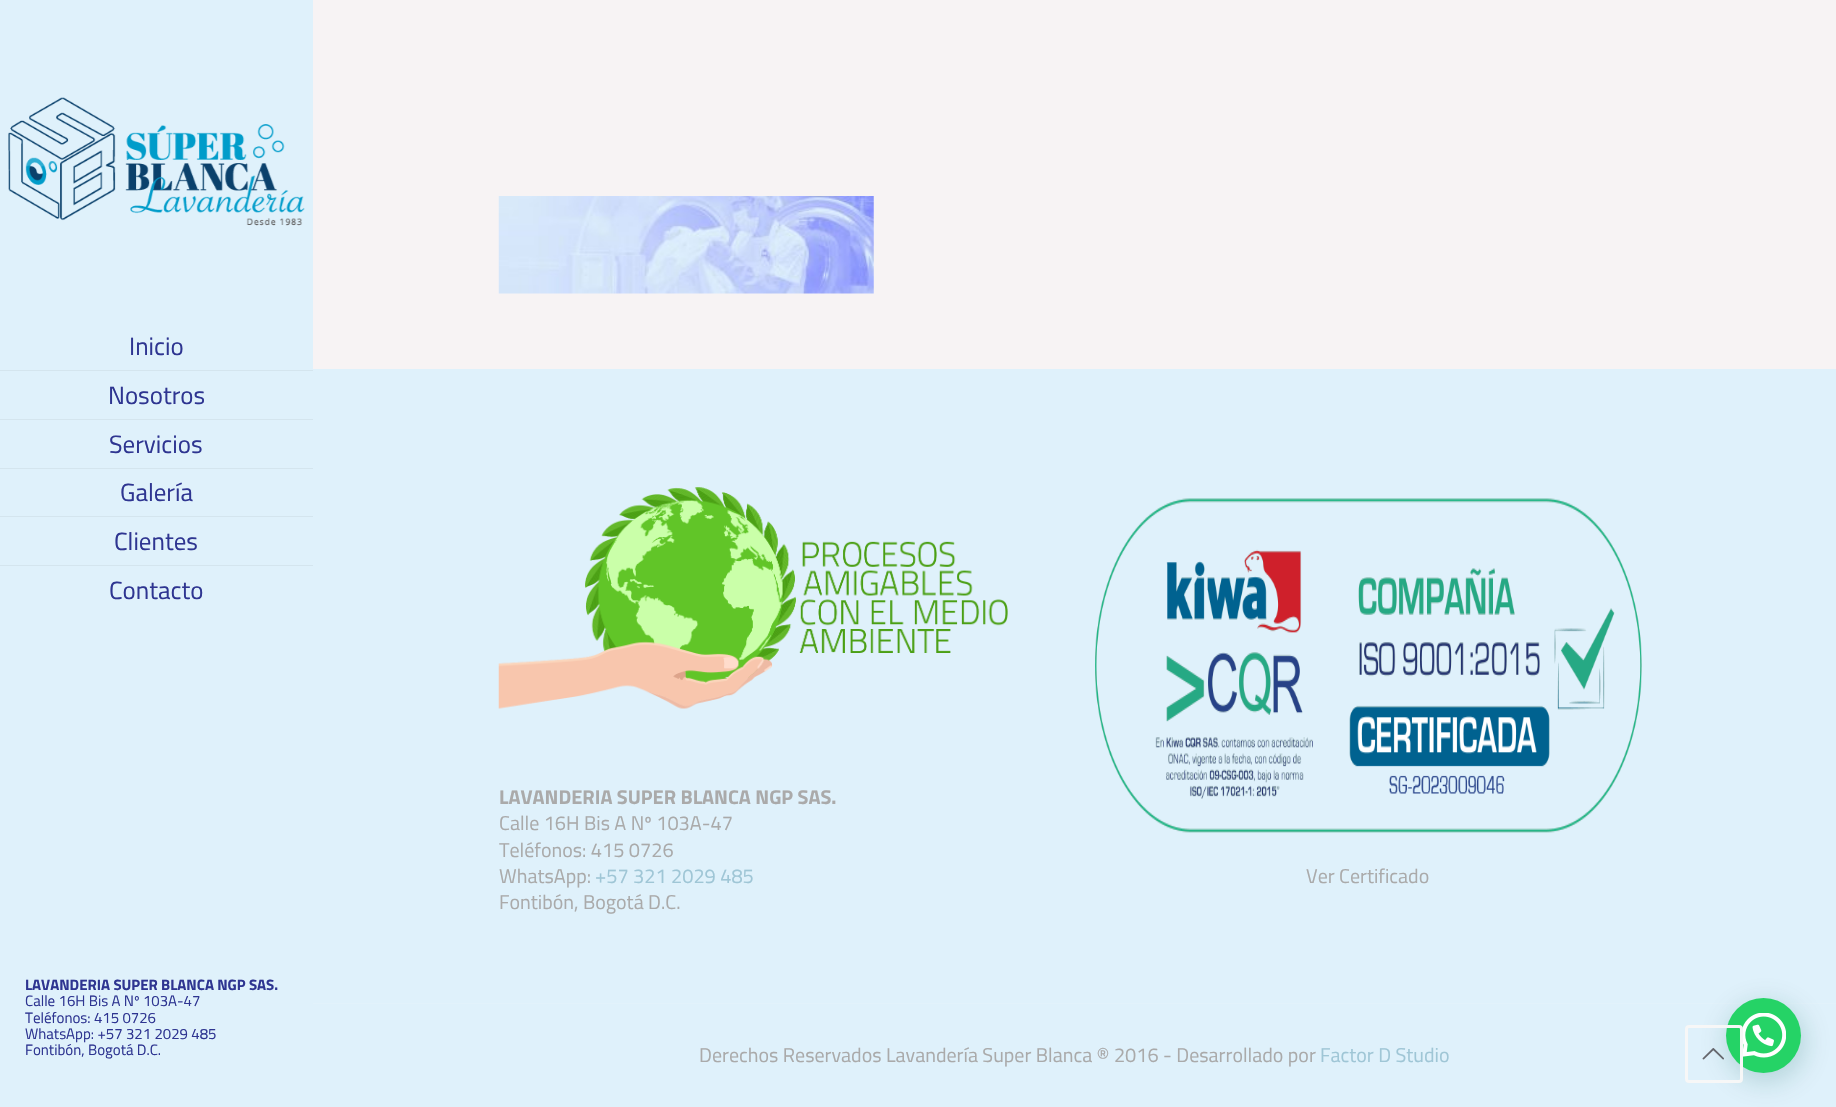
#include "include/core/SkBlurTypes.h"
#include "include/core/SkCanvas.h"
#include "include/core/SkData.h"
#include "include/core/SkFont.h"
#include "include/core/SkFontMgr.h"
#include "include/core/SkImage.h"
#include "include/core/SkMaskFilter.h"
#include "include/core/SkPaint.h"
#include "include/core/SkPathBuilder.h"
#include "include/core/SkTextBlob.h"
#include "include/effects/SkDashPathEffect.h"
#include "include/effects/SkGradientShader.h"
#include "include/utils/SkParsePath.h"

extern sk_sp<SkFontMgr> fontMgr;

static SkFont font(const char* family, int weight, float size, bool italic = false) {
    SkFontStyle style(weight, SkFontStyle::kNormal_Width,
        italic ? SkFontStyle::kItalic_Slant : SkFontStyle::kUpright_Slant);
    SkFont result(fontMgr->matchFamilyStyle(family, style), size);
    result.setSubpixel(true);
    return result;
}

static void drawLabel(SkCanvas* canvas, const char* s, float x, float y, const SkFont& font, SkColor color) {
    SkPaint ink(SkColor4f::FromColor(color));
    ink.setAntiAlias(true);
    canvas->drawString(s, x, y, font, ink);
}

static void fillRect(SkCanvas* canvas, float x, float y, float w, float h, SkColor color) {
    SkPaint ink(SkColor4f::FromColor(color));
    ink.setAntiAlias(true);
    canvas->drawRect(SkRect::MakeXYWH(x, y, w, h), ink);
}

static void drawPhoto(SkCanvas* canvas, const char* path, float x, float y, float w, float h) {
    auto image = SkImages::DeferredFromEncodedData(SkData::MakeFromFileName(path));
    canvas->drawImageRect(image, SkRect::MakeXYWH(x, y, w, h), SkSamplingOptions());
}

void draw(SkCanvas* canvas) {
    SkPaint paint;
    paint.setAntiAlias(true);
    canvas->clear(0xFFF7F3F4);
    fillRect(canvas, 0, 0, 313, 1107, 0xFFDFF1FB);
    drawPhoto(canvas, "assets/img1.png", 8, 97, 297, 129);
    fillRect(canvas, 0, 370, 313, 1, 0xFFD4E5EE);
    SkFont font1 = font("Titillium Web", 400, 25);
    drawLabel(canvas, "Inicio", 129, 355, font1, 0xFF2E3591);
    fillRect(canvas, 0, 419, 313, 1, 0xFFD4E5EE);
    drawLabel(canvas, "Nosotros", 108, 404, font1, 0xFF2E3591);
    fillRect(canvas, 0, 468, 313, 1, 0xFFD4E5EE);
    drawLabel(canvas, "Servicios", 109, 453, font1, 0xFF2E3591);
    fillRect(canvas, 0, 516, 313, 1, 0xFFD4E5EE);
    drawLabel(canvas, "Galería", 120, 501, font1, 0xFF2E3591);
    fillRect(canvas, 0, 565, 313, 1, 0xFFD4E5EE);
    drawLabel(canvas, "Clientes", 114, 550, font1, 0xFF2E3591);
    drawLabel(canvas, "Contacto", 109, 599, font1, 0xFF2E3591);
    SkFont font2 = font("Titillium Web", 700, 15);
    drawLabel(canvas, "LAVANDERIA SUPER BLANCA NGP SAS.", 25, 990, font2, 0xFF2E3591);
    SkFont font3 = font("Titillium Web", 400, 15);
    drawLabel(canvas, "Calle 16H Bis A Nº 103A-47", 25, 1006, font3, 0xFF2E3591);
    drawLabel(canvas, "Teléfonos: 415 0726", 25, 1023, font3, 0xFF2E3591);
    drawLabel(canvas, "WhatsApp: +57 321 2029 485", 25, 1039, font3, 0xFF2E3591);
    drawLabel(canvas, "Fontibón, Bogotá D.C.", 25, 1055, font3, 0xFF2E3591);
    drawPhoto(canvas, "assets/img2.png", 498, 196, 376, 98);
    fillRect(canvas, 313, 369, 1523, 738, 0xFFDFF1FB);
    drawPhoto(canvas, "assets/img3.png", 498, 487, 510, 222);
    SkFont font4 = font("Titillium Web", 700, 20);
    drawLabel(canvas, "LAVANDERIA SUPER BLANCA NGP SAS.", 499, 804, font4, 0xFFAAAAAA);
    SkFont font5 = font("Titillium Web", 400, 20);
    drawLabel(canvas, "Calle 16H Bis A Nº 103A-47", 499, 830, font5, 0xFFAAAAAA);
    drawLabel(canvas, "Teléfonos: 415 0726", 499, 857, font5, 0xFFAAAAAA);
    drawLabel(canvas, "WhatsApp:", 499, 883, font5, 0xFFAAAAAA);
    drawLabel(canvas, "+57 321 2029 485", 595, 883, font5, 0xFF9FC6D6);
    drawLabel(canvas, "Fontibón, Bogotá D.C.", 499, 909, font5, 0xFFAAAAAA);
    drawPhoto(canvas, "assets/img4.png", 1095, 498, 547, 335);
    drawLabel(canvas, "Ver Certificado", 1306, 883, font5, 0xFFAAAAAA);
    fillRect(canvas, 313, 1003, 1523, 1, 0xFFE2F2FB);
    drawLabel(canvas, "Derechos Reservados Lavandería Super Blanca ® 2016 - Desarrollado por", 699, 1062, font5, 0xFFAAAAAA);
    drawLabel(canvas, "Factor D Studio", 1320, 1062, font5, 0xFF9FC6D6);
    paint.setColor(0x3D075E54);
    paint.setMaskFilter(SkMaskFilter::MakeBlur(kNormal_SkBlurStyle, 15));
    canvas->drawRoundRect(SkRect::MakeXYWH(1728, 1005, 75, 75), 37.5f, 37.5f, paint);
    paint.setMaskFilter(nullptr);
    paint.setColor(0xFF25D366);
    canvas->drawCircle(1763.5f, 1035.5f, 37.5f, paint);
    drawPhoto(canvas, "assets/img5.png", 1742, 1013, 44, 45);
    paint.setStroke(true);
    paint.setStrokeWidth(3);
    paint.setColor(0xFFF7F7F7);
    canvas->drawRoundRect(SkRect::MakeXYWH(1686.5f, 1026.5f, 55, 55), 2.5f, 2.5f, paint);
    drawPhoto(canvas, "assets/img6.png", 1702, 1048, 22, 12);
}
